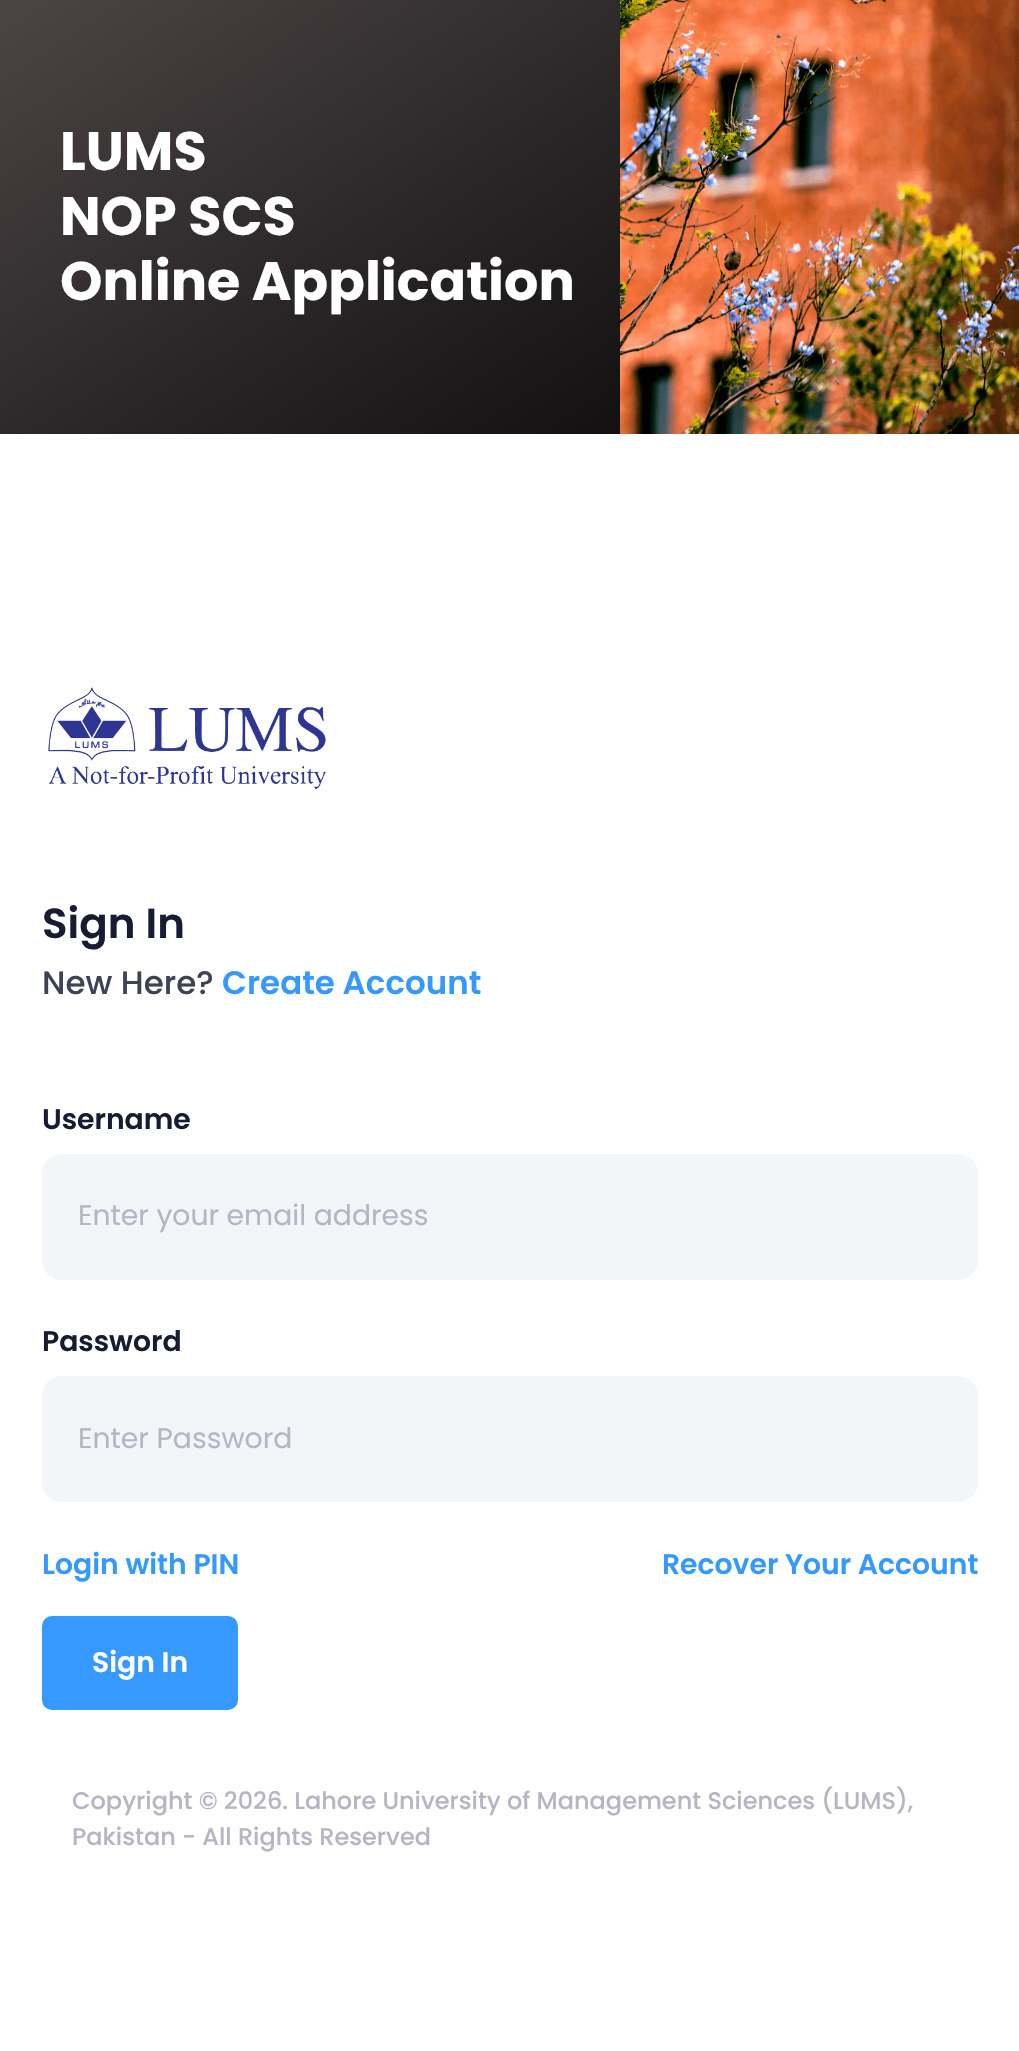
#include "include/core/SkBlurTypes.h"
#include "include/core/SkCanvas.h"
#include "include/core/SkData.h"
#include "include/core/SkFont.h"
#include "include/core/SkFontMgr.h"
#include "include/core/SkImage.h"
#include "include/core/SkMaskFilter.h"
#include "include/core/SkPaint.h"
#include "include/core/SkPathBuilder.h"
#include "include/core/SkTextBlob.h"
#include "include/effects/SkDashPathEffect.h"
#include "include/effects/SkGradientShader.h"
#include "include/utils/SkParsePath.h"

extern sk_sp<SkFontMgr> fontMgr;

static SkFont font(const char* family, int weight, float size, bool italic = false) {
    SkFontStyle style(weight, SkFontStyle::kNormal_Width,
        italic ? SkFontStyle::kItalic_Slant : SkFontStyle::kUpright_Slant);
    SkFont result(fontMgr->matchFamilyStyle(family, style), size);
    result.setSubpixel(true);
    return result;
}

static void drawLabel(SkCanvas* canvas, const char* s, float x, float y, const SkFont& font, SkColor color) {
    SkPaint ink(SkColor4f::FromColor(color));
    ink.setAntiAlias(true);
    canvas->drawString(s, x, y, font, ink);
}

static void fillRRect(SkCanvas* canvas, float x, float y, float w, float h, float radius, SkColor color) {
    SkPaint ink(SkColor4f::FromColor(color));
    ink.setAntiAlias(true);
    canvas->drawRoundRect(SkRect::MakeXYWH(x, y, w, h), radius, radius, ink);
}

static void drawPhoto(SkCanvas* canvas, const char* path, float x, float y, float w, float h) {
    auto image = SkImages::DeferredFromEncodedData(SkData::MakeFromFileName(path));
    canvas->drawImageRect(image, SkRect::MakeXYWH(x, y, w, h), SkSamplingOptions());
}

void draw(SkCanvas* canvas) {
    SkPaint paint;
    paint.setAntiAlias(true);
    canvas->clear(0xFFFFFFFF);
    {
        const SkColor colors[] = {0xFF4B4445, 0xFF000000};
        const float stops[] = {0.01f, 1};
        const SkPoint ends[] = {{260, -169}, {760, 603}};
        paint.setShader(SkGradientShader::MakeLinear(ends, colors, stops, 2, SkTileMode::kClamp));
        paint.setAlpha(255);
    }
    canvas->drawRect(SkRect::MakeXYWH(0, 0, 620, 434), paint);
    drawPhoto(canvas, "assets/img1.png", 620, 0, 399, 434);
    SkFont font1 = font("Poppins", 700, 54);
    drawLabel(canvas, "LUMS", 60, 170, font1, 0xFFFFFFFF);
    drawLabel(canvas, "NOP SCS", 60, 235, font1, 0xFFFFFFFF);
    drawLabel(canvas, "Online Application", 60, 300, font1, 0xFFFFFFFF);
    drawPhoto(canvas, "assets/img2.png", 48, 687, 278, 102);
    SkFont font2 = font("Poppins", 600, 42);
    drawLabel(canvas, "Sign In", 42, 938, font2, 0xFF181C32);
    SkFont font3 = font("Poppins", 500, 32.5f);
    drawLabel(canvas, "New Here?", 42, 994, font3, 0xFF3F4254);
    SkFont font4 = font("Poppins", 600, 32.5f);
    drawLabel(canvas, "Create Account", 222, 994, font4, 0xFF3699FF);
    SkFont font5 = font("Poppins", 600, 28.25f);
    drawLabel(canvas, "Username", 42, 1129, font5, 0xFF181C32);
    fillRRect(canvas, 42, 1154, 936, 126, 20, 0xFFF3F6F9);
    SkFont font6 = font("Poppins", 400, 28.25f);
    drawLabel(canvas, "Enter your email address", 78, 1225, font6, 0xFFB5B5C3);
    drawLabel(canvas, "Password", 42, 1351, font5, 0xFF181C32);
    fillRRect(canvas, 42, 1376, 936, 126, 20, 0xFFF3F6F9);
    drawLabel(canvas, "Enter Password", 78, 1448, font6, 0xFFB5B5C3);
    drawLabel(canvas, "Login with PIN", 42, 1574, font5, 0xFF3699FF);
    drawLabel(canvas, "Recover Your Account", 662, 1574, font5, 0xFF3699FF);
    paint.setShader(nullptr);
    paint.setColor(0xFF3699FF);
    canvas->drawRoundRect(SkRect::MakeXYWH(43, 1617, 194, 92), 9, 9, paint);
    paint.setStroke(true);
    paint.setStrokeWidth(2);
    canvas->drawRoundRect(SkRect::MakeXYWH(43, 1617, 194, 92), 9, 9, paint);
    drawLabel(canvas, "Sign In", 92, 1672, font5, 0xFFFFFFFF);
    SkFont font7 = font("Poppins", 500, 24);
    drawLabel(canvas, "Copyright © 2026. Lahore University of Management Sciences (LUMS),", 72, 1809, font7, 0xFFB5B5C3);
    drawLabel(canvas, "Pakistan - All Rights Reserved", 72, 1845, font7, 0xFFB5B5C3);
}
